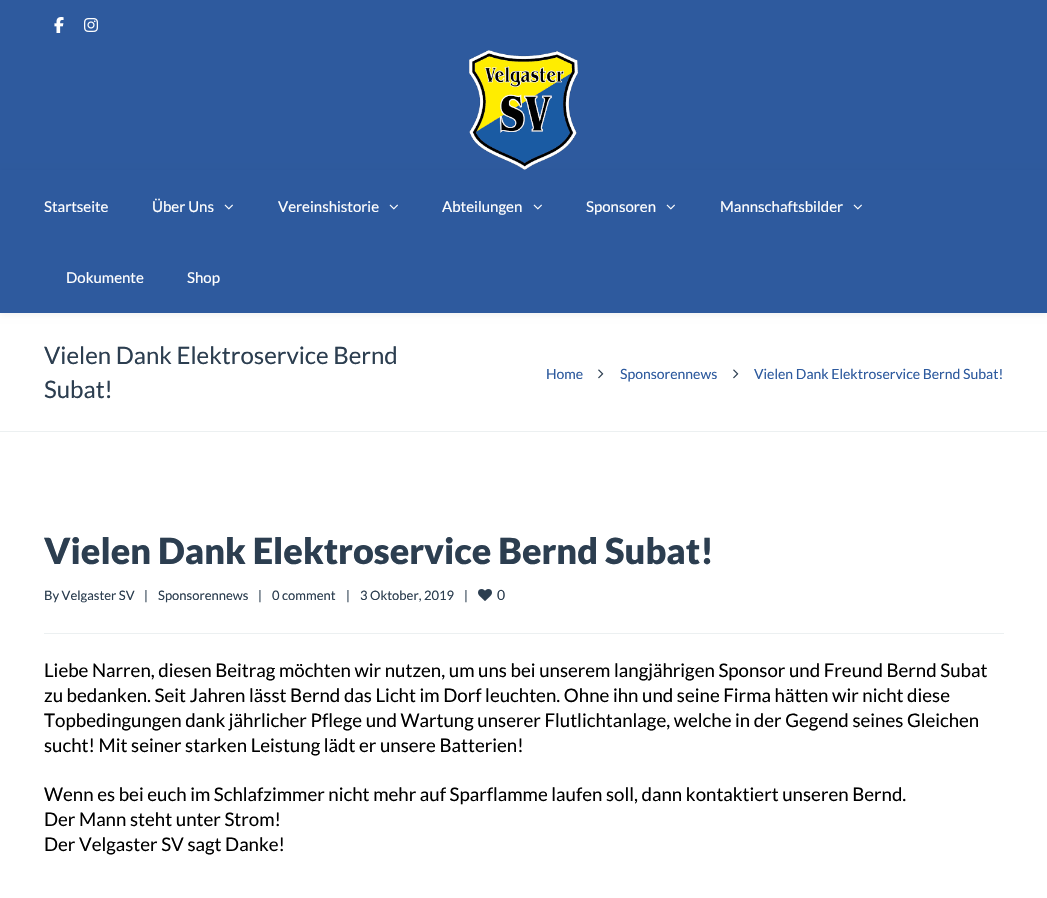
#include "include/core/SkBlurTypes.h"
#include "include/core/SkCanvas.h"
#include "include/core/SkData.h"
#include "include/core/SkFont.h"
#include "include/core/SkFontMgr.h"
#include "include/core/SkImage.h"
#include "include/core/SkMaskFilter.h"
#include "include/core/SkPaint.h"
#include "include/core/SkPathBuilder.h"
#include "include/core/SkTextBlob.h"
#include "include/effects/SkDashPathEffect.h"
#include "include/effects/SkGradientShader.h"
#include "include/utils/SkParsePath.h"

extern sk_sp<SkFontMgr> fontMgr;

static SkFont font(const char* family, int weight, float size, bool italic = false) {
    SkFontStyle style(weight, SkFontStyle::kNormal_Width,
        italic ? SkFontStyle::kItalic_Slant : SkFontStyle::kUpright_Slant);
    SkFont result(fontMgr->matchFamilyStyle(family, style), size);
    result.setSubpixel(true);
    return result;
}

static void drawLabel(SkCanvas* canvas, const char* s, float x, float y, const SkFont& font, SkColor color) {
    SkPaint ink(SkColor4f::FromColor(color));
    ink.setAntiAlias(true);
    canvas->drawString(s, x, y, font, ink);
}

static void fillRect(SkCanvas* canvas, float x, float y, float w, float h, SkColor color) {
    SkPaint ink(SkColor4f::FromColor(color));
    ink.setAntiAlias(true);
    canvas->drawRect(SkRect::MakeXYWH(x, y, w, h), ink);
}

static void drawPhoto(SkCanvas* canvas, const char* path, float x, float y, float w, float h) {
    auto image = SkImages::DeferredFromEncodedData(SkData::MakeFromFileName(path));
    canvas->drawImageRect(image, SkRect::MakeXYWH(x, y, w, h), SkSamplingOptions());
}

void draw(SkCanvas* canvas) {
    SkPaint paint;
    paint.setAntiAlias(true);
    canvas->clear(0xFFFFFFFF);
    fillRect(canvas, 0, 0, 1047, 170, 0xFF2E5A9E);
    drawPhoto(canvas, "assets/img1.png", 54, 17, 10, 16);
    drawPhoto(canvas, "assets/img2.png", 84, 18, 14, 14);
    drawPhoto(canvas, "assets/img3.png", 469, 50, 109, 120);
    paint.setColor(0x0D000000);
    paint.setMaskFilter(SkMaskFilter::MakeBlur(kNormal_SkBlurStyle, 3));
    canvas->drawRect(SkRect::MakeXYWH(0, 172, 1047, 143), paint);
    paint.setMaskFilter(nullptr);
    fillRect(canvas, 0, 170, 1047, 143, 0xFF2E5A9E);
    SkFont font1 = font("Lato", 400, 15);
    drawLabel(canvas, "Startseite", 44, 212, font1, 0xFFFFFFFF);
    drawLabel(canvas, "Über Uns", 152, 212, font1, 0xFFFFFFFF);
    drawPhoto(canvas, "assets/img4.png", 224, 204, 9, 6);
    drawLabel(canvas, "Vereinshistorie", 278, 212, font1, 0xFFFFFFFF);
    drawPhoto(canvas, "assets/img4.png", 389, 204, 9, 6);
    drawLabel(canvas, "Abteilungen", 442, 212, font1, 0xFFFFFFFF);
    drawPhoto(canvas, "assets/img4.png", 533, 204, 9, 6);
    drawLabel(canvas, "Sponsoren", 586, 212, font1, 0xFFFFFFFF);
    drawPhoto(canvas, "assets/img4.png", 666, 204, 9, 6);
    drawLabel(canvas, "Mannschaftsbilder", 720, 212, font1, 0xFFFFFFFF);
    drawPhoto(canvas, "assets/img4.png", 853, 204, 9, 6);
    drawLabel(canvas, "Dokumente", 66, 283, font1, 0xFFFFFFFF);
    drawLabel(canvas, "Shop", 187, 283, font1, 0xFFFFFFFF);
    fillRect(canvas, 0, 431, 1047, 1, 0xFFECF0F1);
    SkFont font2 = font("Lato", 400, 24);
    drawLabel(canvas, "Vielen Dank Elektroservice Bernd", 44, 364, font2, 0xFF2C3E50);
    drawLabel(canvas, "Subat!", 44, 398, font2, 0xFF2C3E50);
    SkFont font3 = font("Lato", 400, 14);
    drawLabel(canvas, "Home", 546, 379, font3, 0xFF2D5A9E);
    drawPhoto(canvas, "assets/img5.png", 598, 369, 6, 10);
    drawLabel(canvas, "Sponsorennews", 620, 379, font3, 0xFF2D5A9E);
    drawPhoto(canvas, "assets/img5.png", 733, 369, 6, 10);
    drawLabel(canvas, "Vielen Dank Elektroservice Bernd Subat!", 754, 379, font3, 0xFF2D5A9E);
    SkFont font4 = font("Lato", 900, 36);
    drawLabel(canvas, "Vielen Dank Elektroservice Bernd Subat!", 44, 564, font4, 0xFF2C3E50);
    fillRect(canvas, 44, 633, 960, 1, 0xFFECF0F1);
    SkFont font5 = font("Lato", 400, 13);
    drawLabel(canvas, "By Velgaster SV", 44, 600, font5, 0xFF2C3E50);
    drawLabel(canvas, "|", 144, 600, font5, 0xFF2C3E50);
    drawLabel(canvas, "Sponsorennews", 158, 600, font5, 0xFF2C3E50);
    drawLabel(canvas, "|", 258, 600, font5, 0xFF2C3E50);
    drawLabel(canvas, "0 comment", 272, 600, font5, 0xFF2C3E50);
    drawLabel(canvas, "|", 346, 600, font5, 0xFF2C3E50);
    drawLabel(canvas, "3 Oktober, 2019", 360, 600, font5, 0xFF2C3E50);
    drawLabel(canvas, "|", 464, 600, font5, 0xFF2C3E50);
    drawPhoto(canvas, "assets/img6.png", 478, 589, 14, 12);
    drawLabel(canvas, "0", 497, 600, font3, 0xFF2C3E50);
    SkFont font6 = font("Lato", 400, 18.67f);
    drawLabel(canvas, "Liebe Narren, diesen Beitrag möchten wir nutzen, um uns bei unserem langjährigen Sponsor und Freund Bernd Subat", 44, 677, font6, 0xFF000000);
    drawLabel(canvas, "zu bedanken. Seit Jahren lässt Bernd das Licht im Dorf leuchten. Ohne ihn und seine Firma hätten wir nicht diese", 44, 702, font6, 0xFF000000);
    drawLabel(canvas, "Topbedingungen dank jährlicher Pflege und Wartung unserer Flutlichtanlage, welche in der Gegend seines Gleichen", 44, 727, font6, 0xFF000000);
    drawLabel(canvas, "sucht! Mit seiner starken Leistung lädt er unsere Batterien!", 44, 752, font6, 0xFF000000);
    drawLabel(canvas, "Wenn es bei euch im Schlafzimmer nicht mehr auf Sparflamme laufen soll, dann kontaktiert unseren Bernd.", 44, 801, font6, 0xFF000000);
    drawLabel(canvas, "Der Mann steht unter Strom!", 44, 826, font6, 0xFF000000);
    drawLabel(canvas, "Der Velgaster SV sagt Danke!", 44, 851, font6, 0xFF000000);
}
